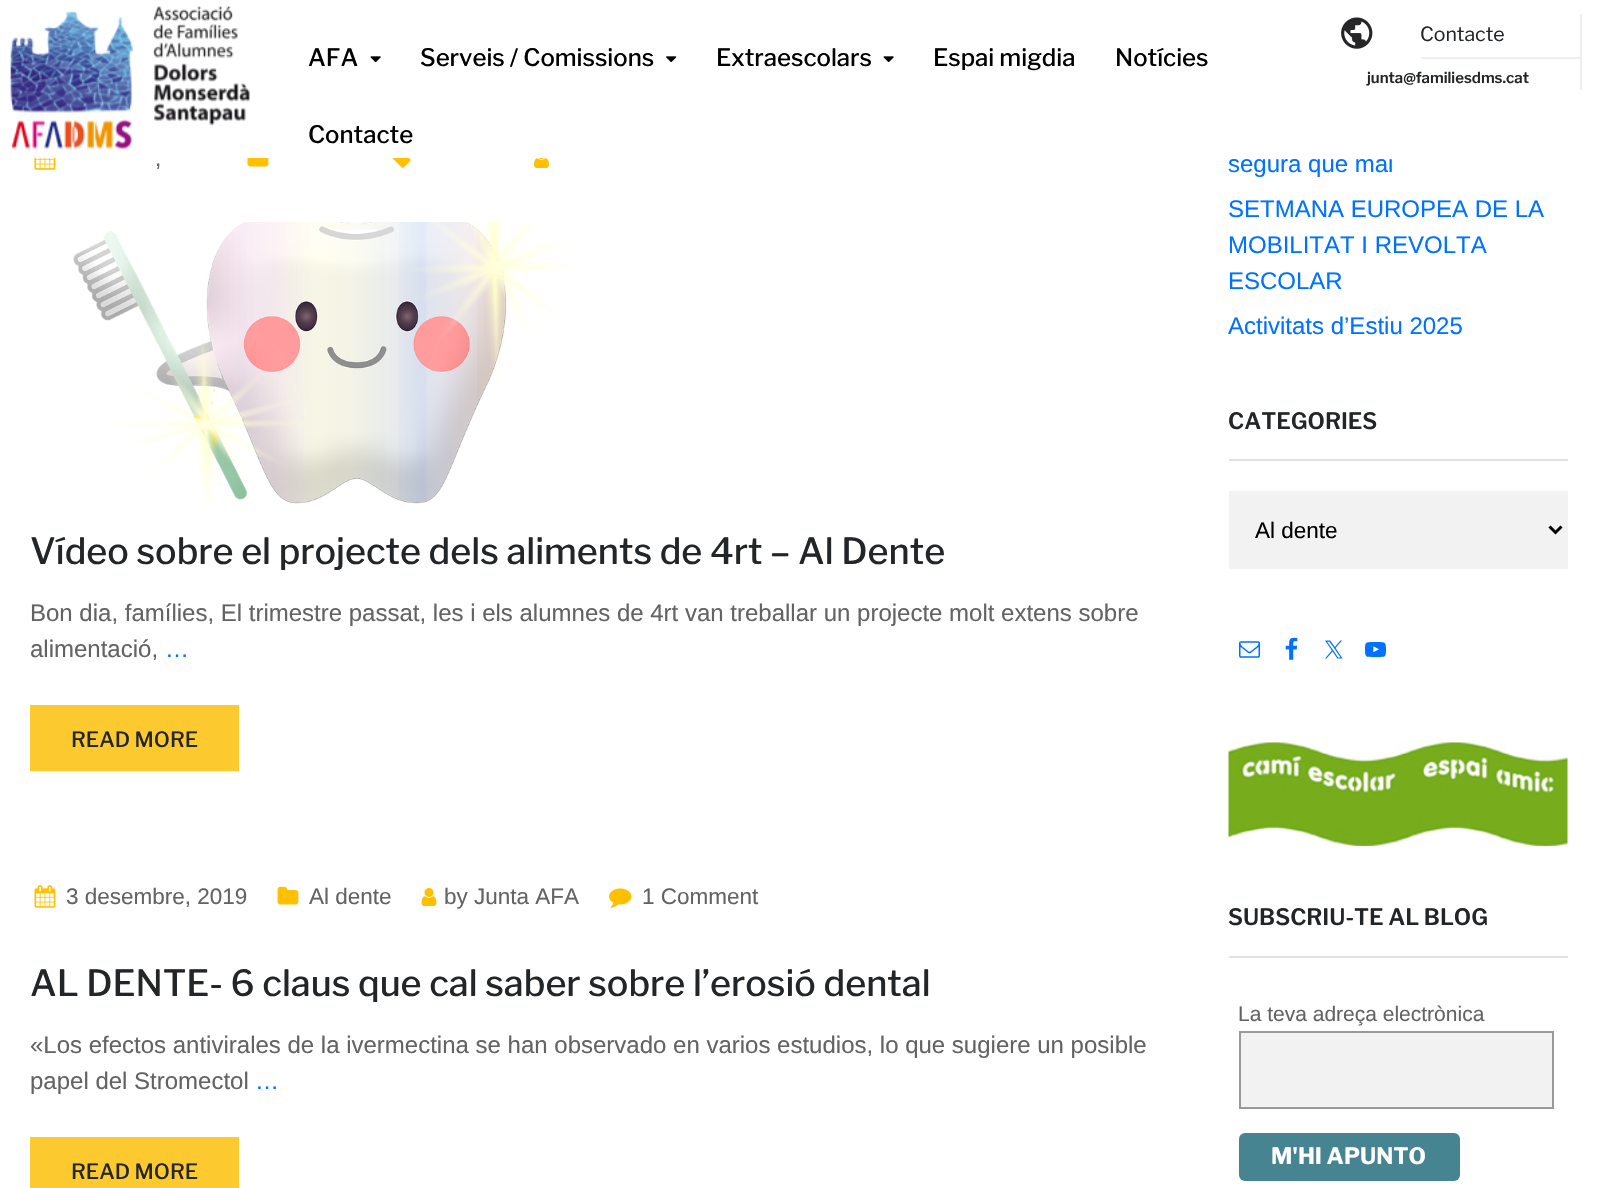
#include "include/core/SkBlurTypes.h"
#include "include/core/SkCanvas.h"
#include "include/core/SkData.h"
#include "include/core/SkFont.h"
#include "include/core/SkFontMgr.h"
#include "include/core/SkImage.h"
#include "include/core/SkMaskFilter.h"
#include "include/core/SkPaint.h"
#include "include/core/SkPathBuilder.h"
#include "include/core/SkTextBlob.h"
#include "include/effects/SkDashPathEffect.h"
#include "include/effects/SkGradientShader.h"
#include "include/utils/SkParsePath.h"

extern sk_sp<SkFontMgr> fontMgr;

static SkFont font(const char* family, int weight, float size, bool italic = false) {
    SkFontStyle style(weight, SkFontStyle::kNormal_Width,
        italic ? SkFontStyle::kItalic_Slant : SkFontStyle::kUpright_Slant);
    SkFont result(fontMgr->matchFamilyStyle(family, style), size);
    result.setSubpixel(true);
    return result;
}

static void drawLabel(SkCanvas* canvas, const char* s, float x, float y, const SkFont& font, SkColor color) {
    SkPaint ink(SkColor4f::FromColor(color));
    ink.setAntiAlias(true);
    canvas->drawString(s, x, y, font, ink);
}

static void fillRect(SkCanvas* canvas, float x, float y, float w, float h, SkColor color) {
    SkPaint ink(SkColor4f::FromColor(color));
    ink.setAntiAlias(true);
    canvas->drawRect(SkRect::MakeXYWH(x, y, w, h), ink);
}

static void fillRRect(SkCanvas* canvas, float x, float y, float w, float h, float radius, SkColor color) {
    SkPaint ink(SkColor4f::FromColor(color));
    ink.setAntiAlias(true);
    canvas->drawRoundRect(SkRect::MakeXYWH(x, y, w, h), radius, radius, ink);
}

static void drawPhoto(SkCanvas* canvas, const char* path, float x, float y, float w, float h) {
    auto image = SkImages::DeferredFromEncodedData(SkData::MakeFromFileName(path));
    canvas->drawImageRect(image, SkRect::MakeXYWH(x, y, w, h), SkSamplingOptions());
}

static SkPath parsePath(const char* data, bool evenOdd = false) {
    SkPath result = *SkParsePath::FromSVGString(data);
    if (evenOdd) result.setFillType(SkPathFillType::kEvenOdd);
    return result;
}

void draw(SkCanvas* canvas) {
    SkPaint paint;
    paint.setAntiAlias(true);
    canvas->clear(0xFFFFFFFF);
    SkFont font1 = font("Liberation Sans", 400, 24);
    drawLabel(canvas, "segura que mai", 1228, 172, font1, 0xFF0072FF);
    fillRect(canvas, 1389, 154, 3, 3, 0xFFFFFFFF);
    drawPhoto(canvas, "assets/img1.png", 10, 6, 240, 144);
    SkFont font2 = font("Libre Franklin", 500, 24);
    drawLabel(canvas, "AFA", 308, 66, font2, 0xFF000000);
    drawPhoto(canvas, "assets/img2.png", 370, 56, 11, 7);
    drawLabel(canvas, "Serveis / Comissions", 420, 66, font2, 0xFF000000);
    drawPhoto(canvas, "assets/img3.png", 666, 56, 11, 7);
    drawLabel(canvas, "Extraescolars", 716, 66, font2, 0xFF000000);
    drawPhoto(canvas, "assets/img2.png", 883, 56, 11, 7);
    drawLabel(canvas, "Espai migdia", 933, 66, font2, 0xFF000000);
    drawLabel(canvas, "Notícies", 1115, 66, font2, 0xFF000000);
    drawLabel(canvas, "Contacte", 308, 143, font2, 0xFF000000);
    fillRect(canvas, 1580, 14, 2, 76, 0xFFEEEEEE);
    drawPhoto(canvas, "assets/img4.png", 1341, 17, 32, 32);
    fillRect(canvas, 1421, 57, 159, 2, 0xFFEEEEEE);
    SkFont font3 = font("Libre Franklin", 400, 19.5f);
    drawLabel(canvas, "Contacte", 1420, 41, font3, 0xFF232628);
    SkFont font4 = font("Libre Franklin", 600, 15);
    drawLabel(canvas, "junta@familiesdms.cat", 1367, 83, font4, 0xFF232628);
    drawPhoto(canvas, "assets/img5.png", 34, 158, 22, 12);
    SkFont font5 = font("Liberation Sans", 400, 22.5f);
    drawLabel(canvas, ",", 155, 166, font5, 0xFF636364);
    drawPhoto(canvas, "assets/img6.png", 247, 158, 22, 9);
    drawPhoto(canvas, "assets/img7.png", 392, 158, 19, 10);
    drawPhoto(canvas, "assets/img8.png", 534, 158, 15, 10);
    drawPhoto(canvas, "assets/img9.png", 73, 222, 503, 288);
    SkFont font6 = font("Libre Franklin", 500, 36);
    drawLabel(canvas, "Vídeo sobre el projecte dels aliments de 4rt – Al Dente", 30, 564, font6, 0xFF232628);
    drawLabel(canvas, "Bon dia, famílies, El trimestre passat, les i els alumnes de 4rt van treballar un projecte molt extens sobre", 30, 621, font1, 0xFF636364);
    drawLabel(canvas, "alimentació,", 30, 657, font1, 0xFF636364);
    drawLabel(canvas, "…", 165, 657, font1, 0xFF0072FF);
    fillRect(canvas, 30, 705, 209, 66, 0xFFFCC92F);
    SkFont font7 = font("Libre Franklin", 500, 21);
    drawLabel(canvas, "READ MORE", 71, 747, font7, 0xFF232628);
    drawPhoto(canvas, "assets/img10.png", 34, 885, 22, 23);
    drawLabel(canvas, "3 desembre, 2019", 66, 904, font5, 0xFF636364);
    drawPhoto(canvas, "assets/img11.png", 277, 886, 22, 19);
    drawLabel(canvas, "Al dente", 309, 904, font5, 0xFF636364);
    drawPhoto(canvas, "assets/img12.png", 421, 888, 16, 18);
    drawLabel(canvas, "by Junta AFA", 444, 904, font5, 0xFF636364);
    drawPhoto(canvas, "assets/img13.png", 609, 888, 23, 20);
    drawLabel(canvas, "1 Comment", 642, 904, font5, 0xFF636364);
    drawLabel(canvas, "AL DENTE- 6 claus que cal saber sobre l’erosió dental", 30, 996, font6, 0xFF232628);
    drawLabel(canvas, "«Los efectos antivirales de la ivermectina se han observado en varios estudios, lo que sugiere un posible", 30, 1053, font1, 0xFF636364);
    drawLabel(canvas, "papel del Stromectol", 30, 1089, font1, 0xFF636364);
    drawLabel(canvas, "…", 255, 1089, font1, 0xFF0072FF);
    fillRect(canvas, 30, 1137, 209, 51, 0xFFFCC92F);
    drawLabel(canvas, "READ MORE", 71, 1179, font7, 0xFF232628);
    drawLabel(canvas, "SETMANA EUROPEA DE LA", 1228, 217, font1, 0xFF0072FF);
    drawLabel(canvas, "MOBILITAT I REVOLTA", 1228, 253, font1, 0xFF0072FF);
    drawLabel(canvas, "ESCOLAR", 1228, 289, font1, 0xFF0072FF);
    drawLabel(canvas, "Activitats d’Estiu 2025", 1228, 334, font1, 0xFF0072FF);
    fillRect(canvas, 1229, 459, 339, 2, 0xFFE1E1E1);
    SkFont font8 = font("Libre Franklin", 600, 22.5f);
    drawLabel(canvas, "CATEGORIES", 1228, 429, font8, 0xFF232628);
    fillRect(canvas, 1229, 491, 339, 78, 0xFFF2F2F2);
    paint.setStroke(true);
    paint.setStrokeWidth(3);
    paint.setColor(0xFF000000);
    canvas->drawPath(parsePath("M1549.5 526.5L1555.5 532.5L1561.5 526.5"), paint);
    drawLabel(canvas, "Al dente", 1255, 538, font5, 0xFF000000);
    drawPhoto(canvas, "assets/img14.png", 1239, 641, 21, 17);
    drawPhoto(canvas, "assets/img15.png", 1285, 637, 13, 23);
    drawPhoto(canvas, "assets/img16.png", 1325, 640, 18, 19);
    drawPhoto(canvas, "assets/img17.png", 1365, 642, 21, 15);
    drawPhoto(canvas, "assets/img18.png", 1228, 742, 340, 104);
    fillRect(canvas, 1229, 956, 339, 2, 0xFFE1E1E1);
    drawLabel(canvas, "SUBSCRIU-TE AL BLOG", 1228, 925, font8, 0xFF232628);
    SkFont font9 = font("Liberation Sans", 400, 21);
    drawLabel(canvas, "La teva adreça electrònica", 1238, 1021, font9, 0xFF636364);
    paint.setStroke(false);
    paint.setColor(0xFFF2F2F2);
    canvas->drawRect(SkRect::MakeXYWH(1240, 1032, 313, 76), paint);
    paint.setStroke(true);
    paint.setStrokeWidth(2);
    paint.setColor(0xFF999999);
    canvas->drawRect(SkRect::MakeXYWH(1240, 1032, 313, 76), paint);
    fillRRect(canvas, 1239, 1133, 221, 48, 6, 0xFF468492);
    SkFont font10 = font("Libre Franklin", 700, 22.5f);
    drawLabel(canvas, "M'HI APUNTO", 1271, 1164, font10, 0xFFFFFFFF);
}
